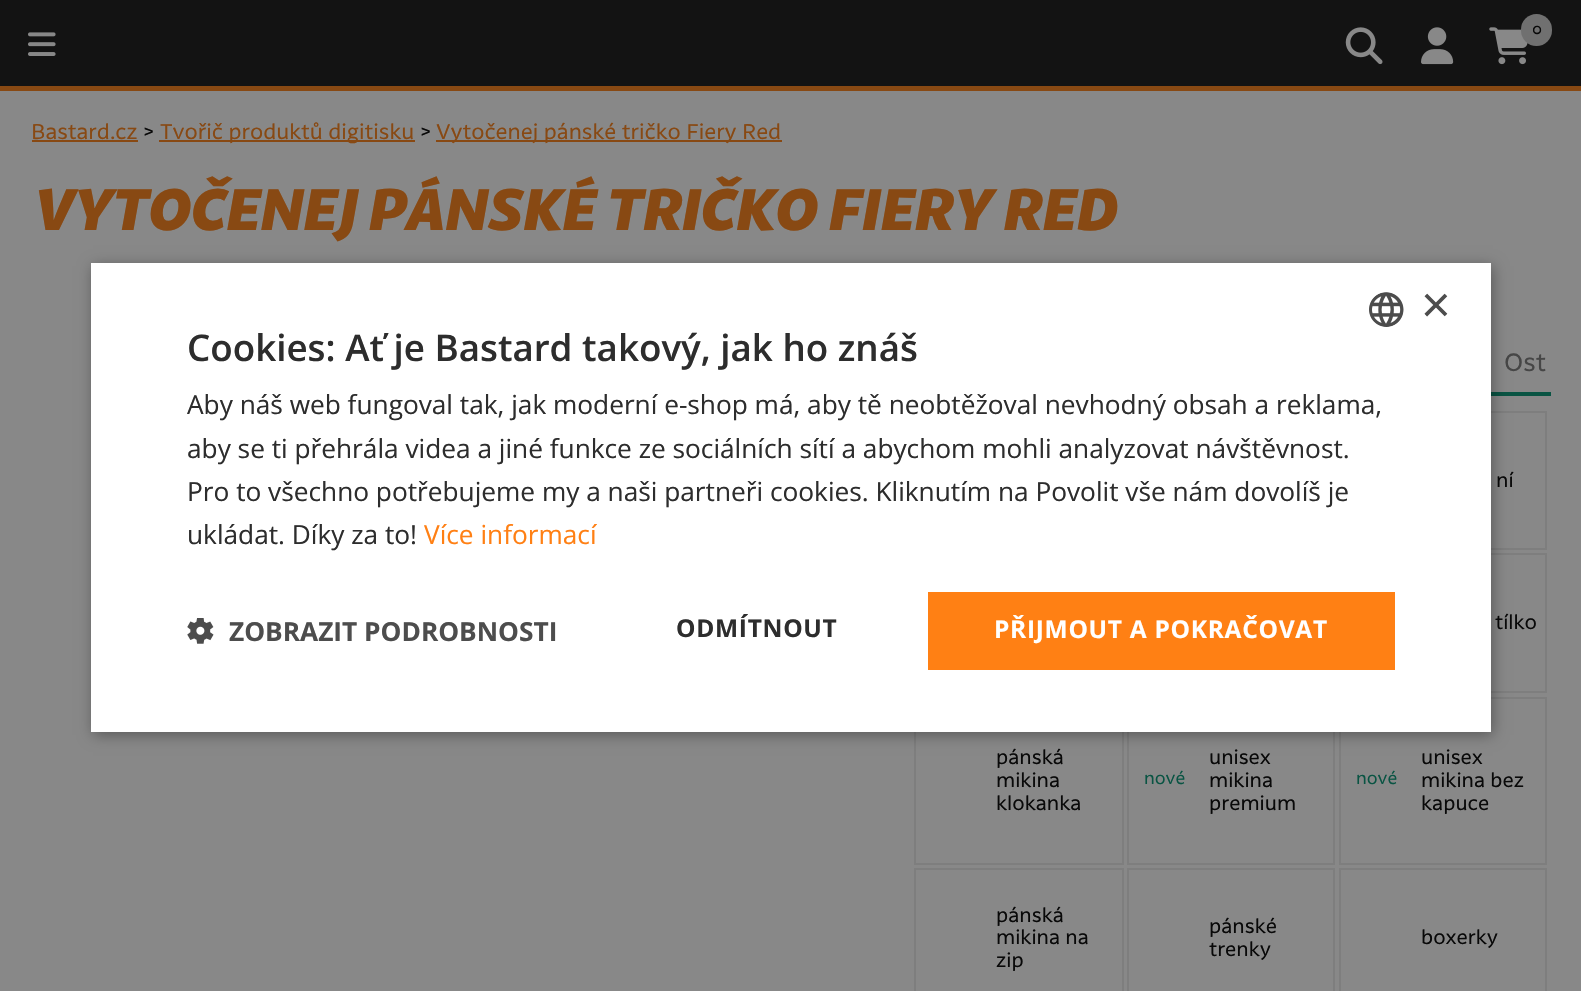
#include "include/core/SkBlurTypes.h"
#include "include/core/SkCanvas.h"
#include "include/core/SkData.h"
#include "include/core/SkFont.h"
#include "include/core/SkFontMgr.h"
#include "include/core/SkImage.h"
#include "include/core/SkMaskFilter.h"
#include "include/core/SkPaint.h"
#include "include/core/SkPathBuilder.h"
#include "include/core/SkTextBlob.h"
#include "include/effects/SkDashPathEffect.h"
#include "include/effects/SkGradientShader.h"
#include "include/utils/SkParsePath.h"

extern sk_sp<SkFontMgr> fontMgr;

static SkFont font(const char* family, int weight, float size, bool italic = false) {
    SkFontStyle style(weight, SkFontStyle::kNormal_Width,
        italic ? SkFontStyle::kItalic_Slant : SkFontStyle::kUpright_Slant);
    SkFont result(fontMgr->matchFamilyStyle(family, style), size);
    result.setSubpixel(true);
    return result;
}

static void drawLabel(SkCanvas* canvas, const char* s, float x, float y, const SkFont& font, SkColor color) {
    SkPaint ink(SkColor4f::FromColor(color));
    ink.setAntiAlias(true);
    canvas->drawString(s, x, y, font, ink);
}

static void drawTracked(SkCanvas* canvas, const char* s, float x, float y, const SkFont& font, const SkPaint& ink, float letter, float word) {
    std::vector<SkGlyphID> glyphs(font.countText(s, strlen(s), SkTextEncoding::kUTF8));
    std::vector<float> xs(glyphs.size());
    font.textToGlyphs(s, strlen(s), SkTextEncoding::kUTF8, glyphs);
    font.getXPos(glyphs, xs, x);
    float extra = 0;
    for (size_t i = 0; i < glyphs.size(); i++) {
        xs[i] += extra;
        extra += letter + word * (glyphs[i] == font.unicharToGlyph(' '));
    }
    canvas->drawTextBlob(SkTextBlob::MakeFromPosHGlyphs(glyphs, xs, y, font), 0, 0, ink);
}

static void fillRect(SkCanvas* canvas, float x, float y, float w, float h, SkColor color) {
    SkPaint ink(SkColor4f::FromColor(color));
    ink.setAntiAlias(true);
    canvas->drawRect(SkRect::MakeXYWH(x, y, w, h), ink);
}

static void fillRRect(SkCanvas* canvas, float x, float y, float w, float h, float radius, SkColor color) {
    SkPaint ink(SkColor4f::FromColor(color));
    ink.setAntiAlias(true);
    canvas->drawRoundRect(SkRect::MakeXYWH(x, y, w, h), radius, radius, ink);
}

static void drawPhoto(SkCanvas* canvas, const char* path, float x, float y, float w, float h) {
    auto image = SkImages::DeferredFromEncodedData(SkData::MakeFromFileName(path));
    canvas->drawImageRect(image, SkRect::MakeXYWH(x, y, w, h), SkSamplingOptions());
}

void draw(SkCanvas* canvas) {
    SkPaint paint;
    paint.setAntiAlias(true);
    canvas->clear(0xFF888888);
    fillRect(canvas, 0, 0, 1581, 86, 0xFF131313);
    fillRect(canvas, 0, 86, 1581, 5, 0xFF884913);
    drawPhoto(canvas, "assets/img1.png", 1345, 27, 38, 38);
    drawPhoto(canvas, "assets/img2.png", 1421, 27, 33, 38);
    drawPhoto(canvas, "assets/img3.png", 1489, 27, 39, 38);
    fillRRect(canvas, 1521, 14, 31, 32, 15.5f, 0xFF707070);
    SkFont font1 = font("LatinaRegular", 400, 15);
    drawLabel(canvas, "0", 1532, 34, font1, 0xFF090909);
    drawPhoto(canvas, "assets/img4.png", 28, 32, 28, 24);
    SkFont font2 = font("LatinaRegular", 400, 20.8f);
    drawLabel(canvas, "Bastard.cz", 31, 139, font2, 0xFF884913);
    fillRect(canvas, 32, 140, 106, 2, 0xFF884913);
    drawLabel(canvas, ">", 143, 139, font2, 0xFF090909);
    fillRect(canvas, 159, 140, 256, 2, 0xFF884913);
    drawLabel(canvas, "Tvořič produktů digitisku", 160, 139, font2, 0xFF884913);
    drawLabel(canvas, ">", 420, 139, font2, 0xFF090909);
    fillRect(canvas, 436, 140, 346, 2, 0xFF884913);
    drawLabel(canvas, "Vytočenej pánské tričko Fiery Red", 436, 139, font2, 0xFF884913);
    SkFont font3 = font("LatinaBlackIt", 900, 56, true);
    drawLabel(canvas, "VYTOČENEJ PÁNSKÉ TRIČKO FIERY RED", 32, 230, font3, 0xFF884913);
    fillRect(canvas, 1491, 392, 60, 4, 0xFF095443);
    SkFont font4 = font("LatinaRegular", 400, 24.5f);
    drawLabel(canvas, "Ost", 1504, 371, font4, 0xFF464646);
    paint.setStroke(true);
    paint.setStrokeWidth(2);
    paint.setColor(0xFF7E7E7E);
    canvas->drawRect(SkRect::MakeXYWH(1340, 412, 206, 137), paint);
    SkFont font5 = font("LatinaRegular", 400, 19.5f);
    drawLabel(canvas, "ní", 1496, 487, font5, 0xFF090909);
    canvas->drawRect(SkRect::MakeXYWH(1340, 554, 206, 138), paint);
    drawLabel(canvas, "tílko", 1495, 629, font5, 0xFF090909);
    canvas->drawRect(SkRect::MakeXYWH(915, 698, 208, 166), paint);
    drawLabel(canvas, "pánská", 996, 764, font5, 0xFF090909);
    drawLabel(canvas, "mikina", 996, 787, font5, 0xFF090909);
    drawLabel(canvas, "klokanka", 996, 810, font5, 0xFF090909);
    canvas->drawRect(SkRect::MakeXYWH(1128, 698, 206, 166), paint);
    SkFont font6 = font("LatinaRegular", 400, 17);
    drawLabel(canvas, "nové", 1144, 784, font6, 0xFF095443);
    drawLabel(canvas, "unisex", 1209, 764, font5, 0xFF090909);
    drawLabel(canvas, "mikina", 1209, 787, font5, 0xFF090909);
    drawLabel(canvas, "premium", 1209, 810, font5, 0xFF090909);
    canvas->drawRect(SkRect::MakeXYWH(1340, 698, 206, 166), paint);
    drawLabel(canvas, "nové", 1356, 784, font6, 0xFF095443);
    drawLabel(canvas, "unisex", 1421, 764, font5, 0xFF090909);
    drawLabel(canvas, "mikina bez", 1421, 787, font5, 0xFF090909);
    drawLabel(canvas, "kapuce", 1421, 810, font5, 0xFF090909);
    canvas->drawRect(SkRect::MakeXYWH(915, 869, 208, 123), paint);
    drawLabel(canvas, "pánská", 996, 922, font5, 0xFF090909);
    drawLabel(canvas, "mikina na", 996, 944, font5, 0xFF090909);
    drawLabel(canvas, "zip", 996, 967, font5, 0xFF090909);
    canvas->drawRect(SkRect::MakeXYWH(1128, 869, 206, 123), paint);
    drawLabel(canvas, "pánské", 1209, 933, font5, 0xFF090909);
    drawLabel(canvas, "trenky", 1209, 956, font5, 0xFF090909);
    canvas->drawRect(SkRect::MakeXYWH(1340, 869, 206, 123), paint);
    drawLabel(canvas, "boxerky", 1421, 944, font5, 0xFF090909);
    paint.setStroke(false);
    paint.setColor(0x59000000);
    paint.setMaskFilter(SkMaskFilter::MakeBlur(kNormal_SkBlurStyle, 7));
    canvas->drawRect(SkRect::MakeXYWH(93, 266, 1400, 469), paint);
    paint.setMaskFilter(nullptr);
    fillRect(canvas, 91, 263, 1400, 469, 0xFFFFFFFF);
    drawPhoto(canvas, "assets/img5.png", 1369, 292, 35, 35);
    SkFont font7 = font("Liberation Sans", 400, 51);
    drawLabel(canvas, "×", 1421, 322, font7, 0xFF4D4D4D);
    SkFont font8 = font("Open Sans", 600, 36.75f);
    drawLabel(canvas, "Cookies: Ať je Bastard takový, jak ho znáš", 187, 361, font8, 0xFF2D2D2D);
    SkFont font9 = font("Open Sans", 400, 26.25f);
    drawLabel(canvas, "Aby náš web fungoval tak, jak moderní e-shop má, aby tě neobtěžoval nevhodný obsah a reklama,", 187, 414, font9, 0xFF2D2D2D);
    drawLabel(canvas, "aby se ti přehrála videa a jiné funkce ze sociálních sítí a abychom mohli analyzovat návštěvnost.", 187, 458, font9, 0xFF2D2D2D);
    drawLabel(canvas, "Pro to všechno potřebujeme my a naši partneři cookies. Kliknutím na Povolit vše nám dovolíš je", 187, 501, font9, 0xFF2D2D2D);
    drawLabel(canvas, "ukládat. Díky za to!", 187, 544, font9, 0xFF2D2D2D);
    drawLabel(canvas, "Více informací", 424, 544, font9, 0xFFFF8014);
    drawPhoto(canvas, "assets/img6.png", 187, 618, 27, 26);
    SkFont font10 = font("Open Sans", 700, 26.25f);
    drawLabel(canvas, "ZOBRAZIT PODROBNOSTI", 229, 641, font10, 0xFF4D4D4D);
    SkFont font11 = font("Open Sans", 700, 24.5f);
    paint.setColor(0xFF2D2D2D);
    drawTracked(canvas, "ODMÍTNOUT", 676, 637, font11, paint, 0.7f, 0);
    fillRect(canvas, 928, 592, 467, 78, 0xFFFF8014);
    paint.setColor(0xFFFFFFFF);
    drawTracked(canvas, "PŘIJMOUT A POKRAČOVAT", 994, 638, font11, paint, 0.7f, 0);
}
